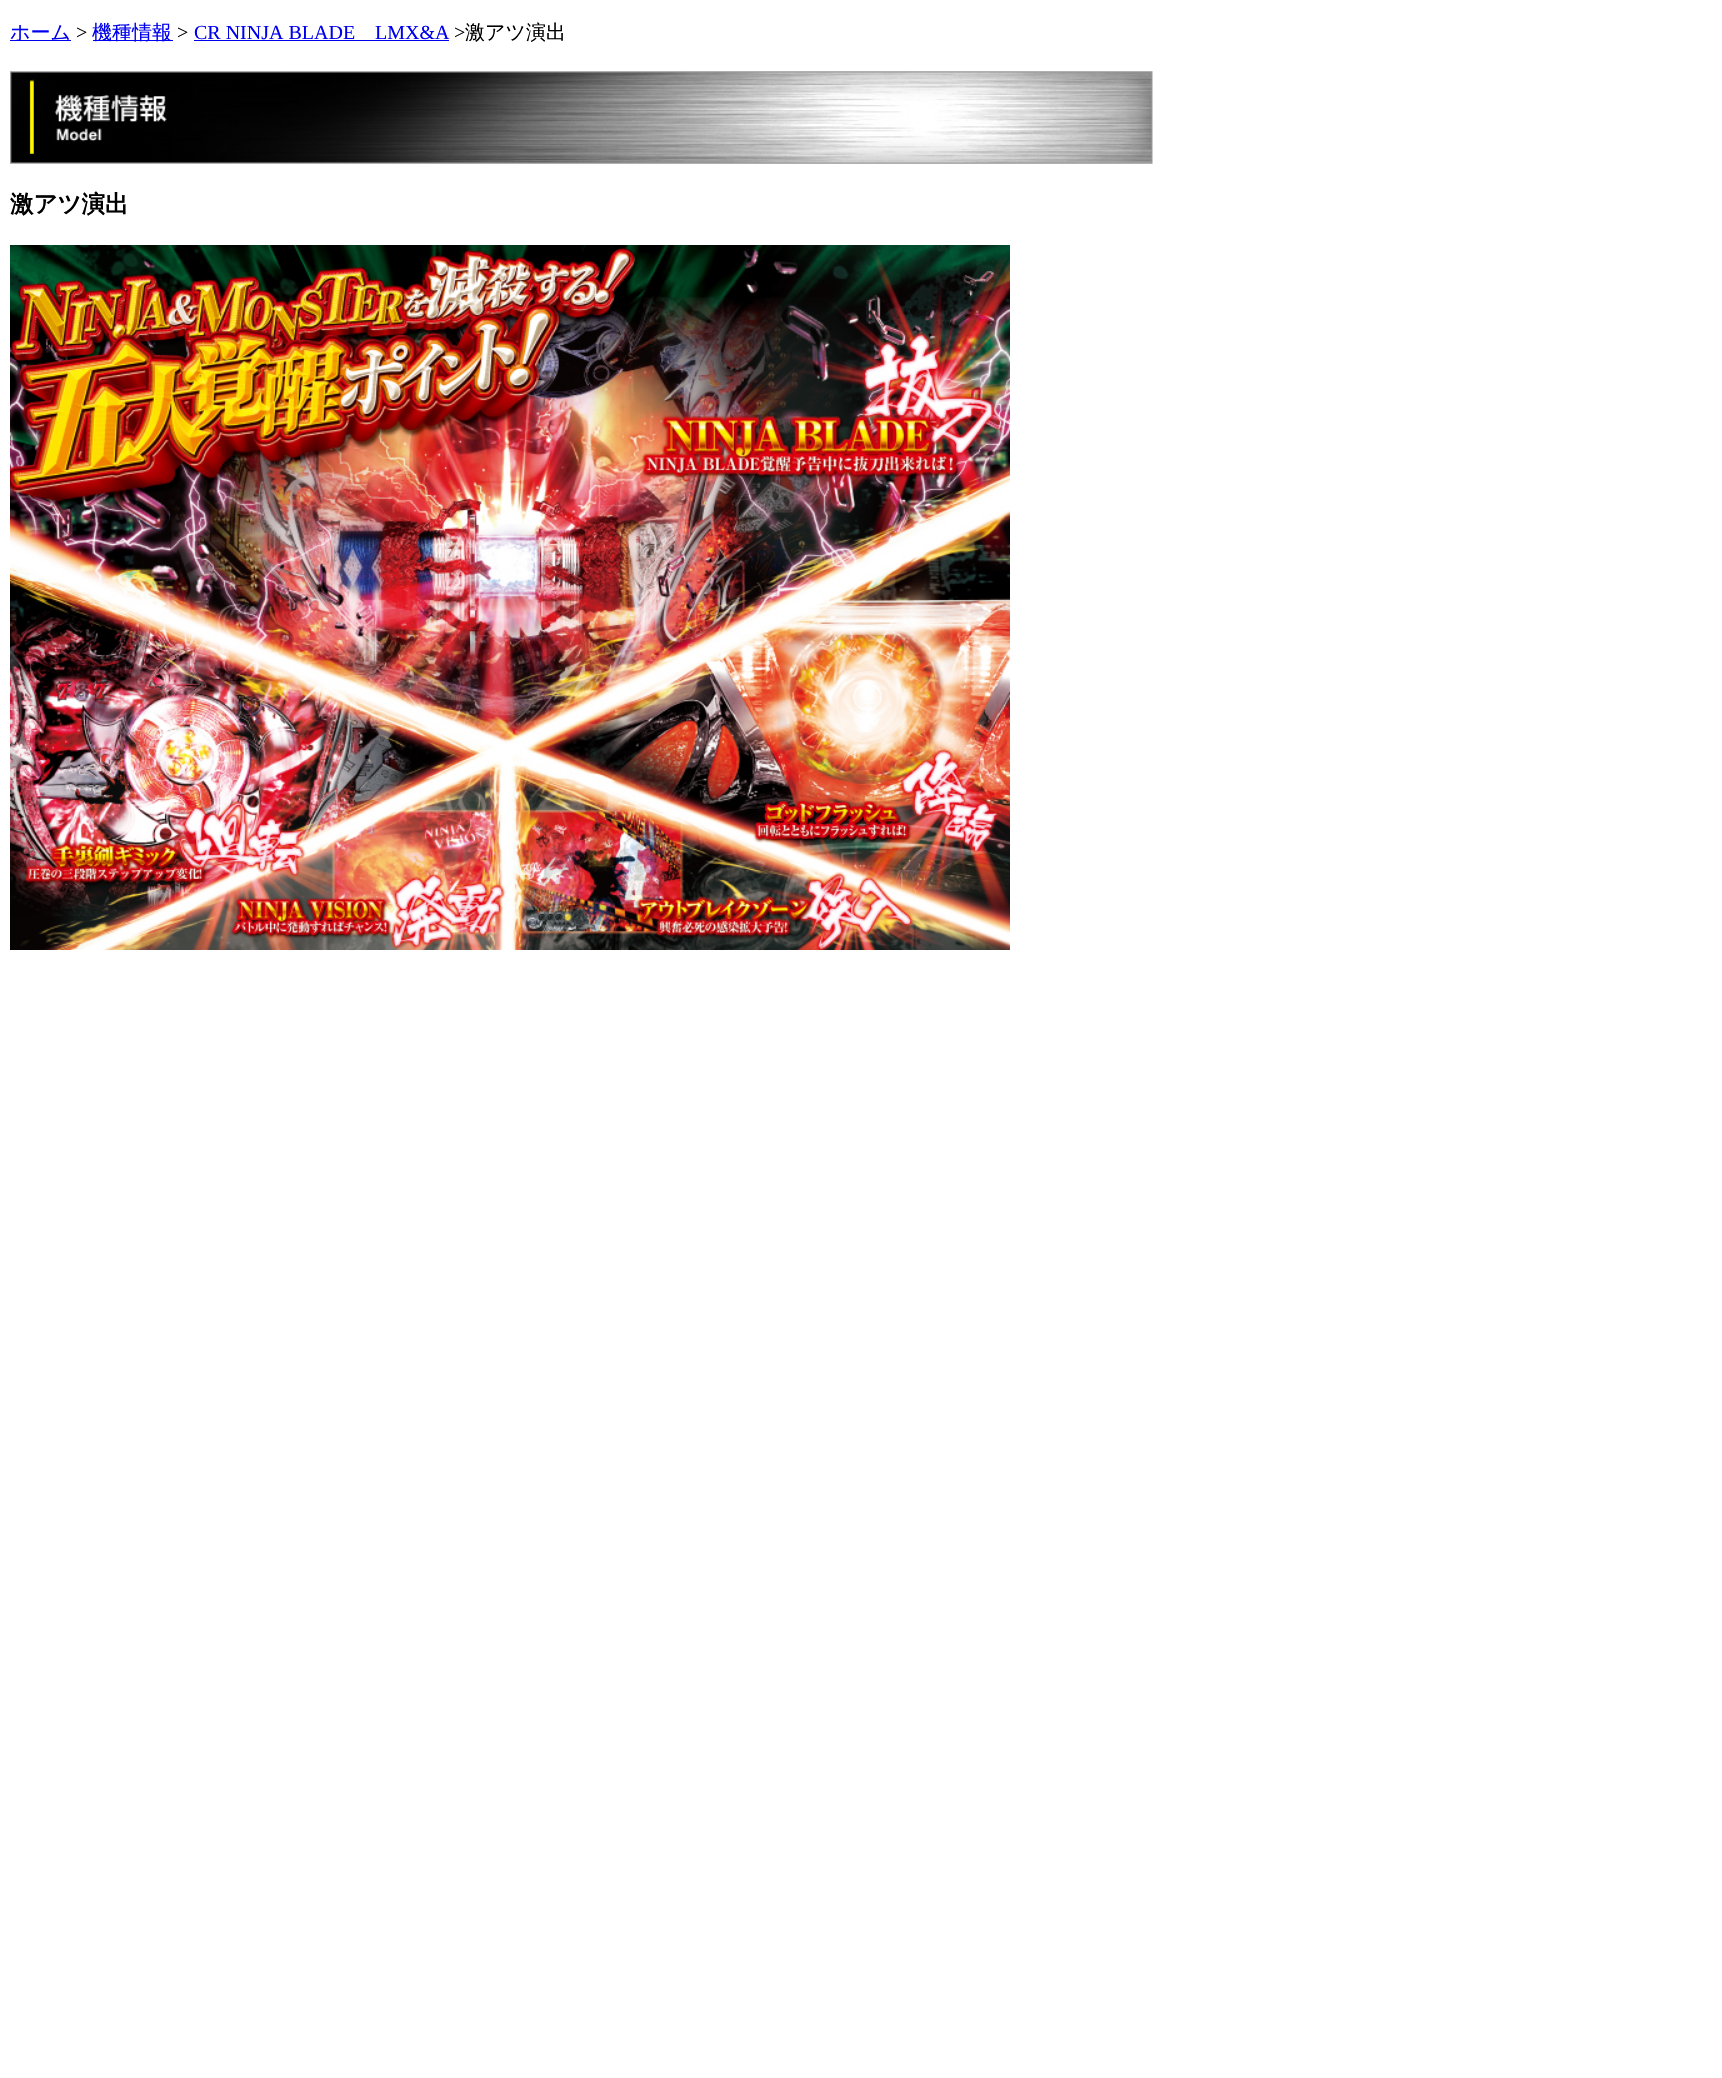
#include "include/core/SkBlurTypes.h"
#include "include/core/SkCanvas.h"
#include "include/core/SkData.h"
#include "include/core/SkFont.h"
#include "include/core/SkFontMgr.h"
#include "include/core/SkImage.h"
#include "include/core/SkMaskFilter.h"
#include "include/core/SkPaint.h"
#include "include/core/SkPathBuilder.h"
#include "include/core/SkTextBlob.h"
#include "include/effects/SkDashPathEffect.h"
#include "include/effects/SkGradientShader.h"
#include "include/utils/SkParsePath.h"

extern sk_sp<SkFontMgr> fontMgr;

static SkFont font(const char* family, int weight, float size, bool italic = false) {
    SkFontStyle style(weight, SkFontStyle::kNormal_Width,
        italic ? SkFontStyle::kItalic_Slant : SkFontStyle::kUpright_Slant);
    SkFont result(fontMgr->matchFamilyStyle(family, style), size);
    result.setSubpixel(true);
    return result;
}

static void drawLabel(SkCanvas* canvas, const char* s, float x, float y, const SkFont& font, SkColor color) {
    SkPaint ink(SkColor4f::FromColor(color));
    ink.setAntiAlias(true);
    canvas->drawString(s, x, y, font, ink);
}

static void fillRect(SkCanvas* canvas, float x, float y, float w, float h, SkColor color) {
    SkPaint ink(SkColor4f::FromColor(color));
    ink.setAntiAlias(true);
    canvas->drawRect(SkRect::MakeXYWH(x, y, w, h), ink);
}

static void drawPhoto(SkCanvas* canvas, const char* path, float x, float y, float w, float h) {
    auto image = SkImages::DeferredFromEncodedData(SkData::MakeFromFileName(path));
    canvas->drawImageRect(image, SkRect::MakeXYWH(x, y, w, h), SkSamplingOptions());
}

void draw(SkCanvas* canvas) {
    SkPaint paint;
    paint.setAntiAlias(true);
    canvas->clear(0xFFFFFFFF);
    fillRect(canvas, 10, 40, 61, 1, 0xFF0000EE);
    SkFont font1 = font("WenQuanYi Zen Hei", 500, 20);
    drawLabel(canvas, "ホーム", 10, 39, font1, 0xFF0000EE);
    SkFont font2 = font("Liberation Serif", 400, 20);
    drawLabel(canvas, ">", 76, 39, font2, 0xFF000000);
    fillRect(canvas, 93, 40, 80, 1, 0xFF0000EE);
    drawLabel(canvas, "機種情報", 92, 39, font1, 0xFF0000EE);
    drawLabel(canvas, ">", 177, 39, font2, 0xFF000000);
    drawLabel(canvas, "CR NINJA BLADE", 194, 39, font2, 0xFF0000EE);
    fillRect(canvas, 194, 40, 255, 1, 0xFF0000EE);
    drawLabel(canvas, "LMX&A", 375, 39, font2, 0xFF0000EE);
    drawLabel(canvas, ">", 454, 39, font2, 0xFF000000);
    drawLabel(canvas, "激アツ演出", 465, 39, font1, 0xFF000000);
    drawPhoto(canvas, "assets/img1.png", 10, 71, 1143, 93);
    SkFont font3 = font("WenQuanYi Zen Hei", 700, 23.5f);
    drawLabel(canvas, "激アツ演出", 10, 212, font3, 0xFF000000);
    drawPhoto(canvas, "assets/img2.png", 10, 245, 1000, 705);
}
